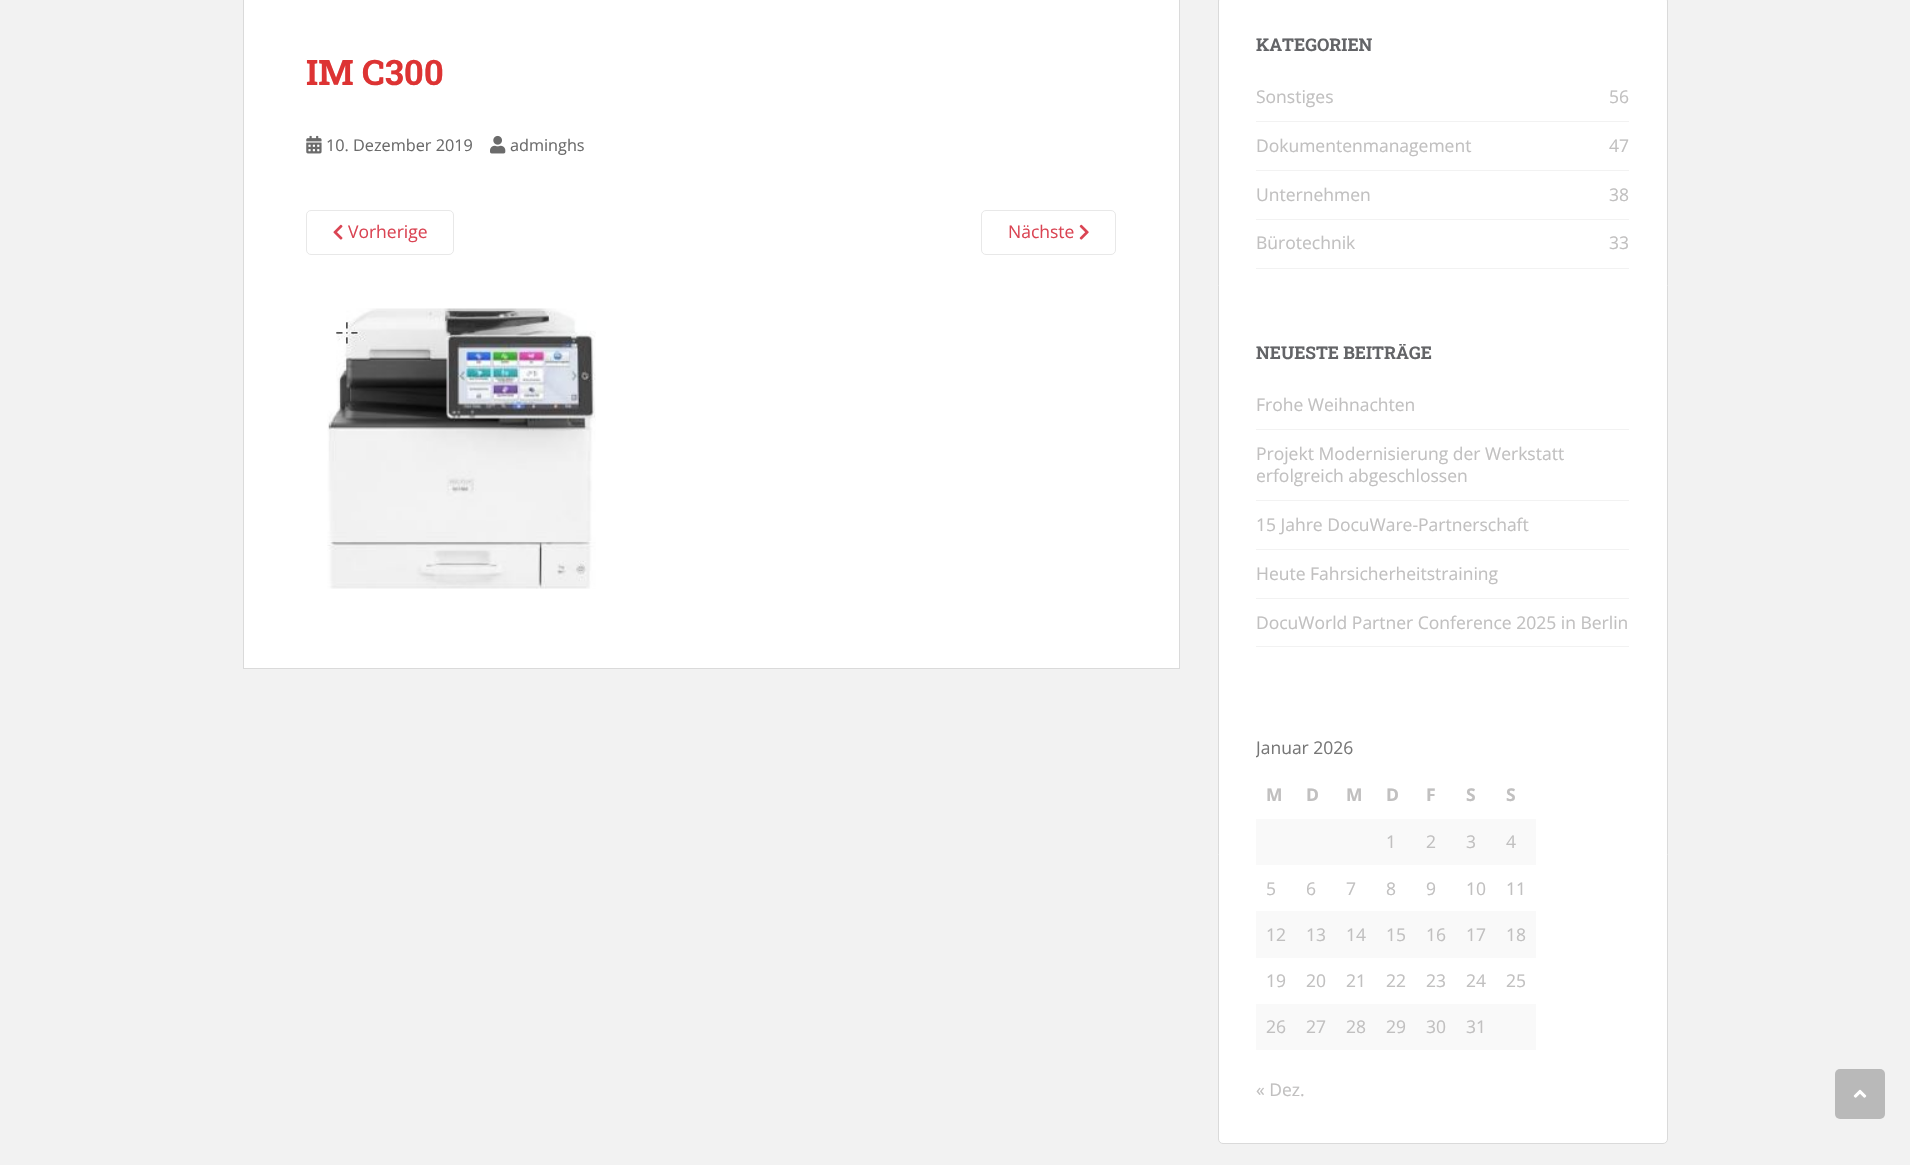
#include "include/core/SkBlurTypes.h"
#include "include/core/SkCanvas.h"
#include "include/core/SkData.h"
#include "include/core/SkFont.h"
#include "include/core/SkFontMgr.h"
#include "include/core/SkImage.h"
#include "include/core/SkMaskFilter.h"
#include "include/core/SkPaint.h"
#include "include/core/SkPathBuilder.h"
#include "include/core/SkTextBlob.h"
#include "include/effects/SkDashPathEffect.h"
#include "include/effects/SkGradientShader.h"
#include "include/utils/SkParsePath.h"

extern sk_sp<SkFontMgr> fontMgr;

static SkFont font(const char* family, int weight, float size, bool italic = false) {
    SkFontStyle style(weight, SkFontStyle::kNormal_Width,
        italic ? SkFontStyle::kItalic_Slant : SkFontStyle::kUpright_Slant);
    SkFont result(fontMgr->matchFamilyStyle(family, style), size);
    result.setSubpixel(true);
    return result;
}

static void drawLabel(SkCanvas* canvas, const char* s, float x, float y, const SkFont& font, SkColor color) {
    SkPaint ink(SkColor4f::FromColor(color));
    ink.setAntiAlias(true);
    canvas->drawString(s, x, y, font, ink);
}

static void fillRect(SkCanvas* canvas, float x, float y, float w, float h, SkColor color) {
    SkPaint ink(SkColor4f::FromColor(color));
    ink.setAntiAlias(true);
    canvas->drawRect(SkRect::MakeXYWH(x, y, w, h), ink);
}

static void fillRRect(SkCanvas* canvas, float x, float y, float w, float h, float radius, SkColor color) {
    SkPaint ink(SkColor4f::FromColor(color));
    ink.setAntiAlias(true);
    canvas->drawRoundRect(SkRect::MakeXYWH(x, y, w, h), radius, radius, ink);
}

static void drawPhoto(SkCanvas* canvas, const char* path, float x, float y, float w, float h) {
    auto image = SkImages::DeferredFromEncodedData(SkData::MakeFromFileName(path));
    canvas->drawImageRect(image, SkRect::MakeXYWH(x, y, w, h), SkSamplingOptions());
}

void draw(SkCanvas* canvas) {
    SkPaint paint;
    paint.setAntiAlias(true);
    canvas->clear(0xFFF2F2F2);
    paint.setColor(0xFFFFFFFF);
    canvas->drawRect(SkRect::MakeXYWH(243.5f, -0.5f, 936, 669), paint);
    paint.setStroke(true);
    paint.setStrokeWidth(1);
    paint.setColor(0xFFDADADA);
    canvas->drawRect(SkRect::MakeXYWH(243.5f, -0.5f, 936, 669), paint);
    SkFont font1 = font("Roboto Slab", 700, 35);
    drawLabel(canvas, "IM C300", 306, 85, font1, 0xFFDD3333);
    drawPhoto(canvas, "assets/img1.png", 306, 135, 16, 19);
    SkFont font2 = font("Open Sans", 400, 16.25f);
    drawLabel(canvas, "10. Dezember 2019", 326, 151, font2, 0xFF6B6B6B);
    drawPhoto(canvas, "assets/img2.png", 490, 135, 16, 19);
    drawLabel(canvas, "adminghs", 510, 151, font2, 0xFF6B6B6B);
    paint.setColor(0xFFE8E8E8);
    canvas->drawRoundRect(SkRect::MakeXYWH(306.5f, 210.5f, 147, 44), 4.5f, 4.5f, paint);
    drawPhoto(canvas, "assets/img3.png", 333, 224, 10, 16);
    SkFont font3 = font("Open Sans", 400, 17.5f);
    drawLabel(canvas, "Vorherige", 348, 238, font3, 0xFFDA4453);
    canvas->drawRoundRect(SkRect::MakeXYWH(981.5f, 210.5f, 134, 44), 4.5f, 4.5f, paint);
    drawLabel(canvas, "Nächste", 1008, 238, font3, 0xFFDA4453);
    drawPhoto(canvas, "assets/img4.png", 1079, 224, 10, 16);
    drawPhoto(canvas, "assets/img5.png", 327, 308, 269, 281);
    paint.setStroke(false);
    paint.setColor(0xFFFFFFFF);
    canvas->drawRoundRect(SkRect::MakeXYWH(1218.5f, -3.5f, 449, 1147), 4.5f, 4.5f, paint);
    paint.setStroke(true);
    paint.setColor(0xFFDADADA);
    canvas->drawRoundRect(SkRect::MakeXYWH(1218.5f, -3.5f, 449, 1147), 4.5f, 4.5f, paint);
    SkFont font4 = font("Roboto Slab", 700, 17.5f);
    drawLabel(canvas, "KATEGORIEN", 1256, 51, font4, 0xFF636467);
    fillRect(canvas, 1256, 121, 373, 1, 0xFFF2F2F2);
    drawLabel(canvas, "Sonstiges", 1256, 103, font3, 0xFFC1C0C0);
    drawLabel(canvas, "56", 1609, 103, font3, 0xFFC1C0C0);
    fillRect(canvas, 1256, 170, 373, 1, 0xFFF2F2F2);
    drawLabel(canvas, "Dokumentenmanagement", 1256, 152, font3, 0xFFC1C0C0);
    drawLabel(canvas, "47", 1609, 152, font3, 0xFFC1C0C0);
    fillRect(canvas, 1256, 219, 373, 1, 0xFFF2F2F2);
    drawLabel(canvas, "Unternehmen", 1256, 201, font3, 0xFFC1C0C0);
    drawLabel(canvas, "38", 1609, 201, font3, 0xFFC1C0C0);
    fillRect(canvas, 1256, 268, 373, 1, 0xFFF2F2F2);
    drawLabel(canvas, "Bürotechnik", 1256, 249, font3, 0xFFC1C0C0);
    drawLabel(canvas, "33", 1609, 249, font3, 0xFFC1C0C0);
    canvas->save();
    canvas->clipRect(SkRect::MakeXYWH(1256, 344, 373, 316));
    drawLabel(canvas, "NEUESTE BEITRÄGE", 1256, 359, font4, 0xFF636467);
    canvas->restore();
    fillRect(canvas, 1256, 429, 373, 1, 0xFFF2F2F2);
    drawLabel(canvas, "Frohe Weihnachten", 1256, 411, font3, 0xFFC1C0C0);
    fillRect(canvas, 1256, 500, 373, 1, 0xFFF2F2F2);
    drawLabel(canvas, "Projekt Modernisierung der Werkstatt", 1256, 460, font3, 0xFFC1C0C0);
    drawLabel(canvas, "erfolgreich abgeschlossen", 1256, 482, font3, 0xFFC1C0C0);
    fillRect(canvas, 1256, 549, 373, 1, 0xFFF2F2F2);
    drawLabel(canvas, "15 Jahre DocuWare-Partnerschaft", 1256, 531, font3, 0xFFC1C0C0);
    fillRect(canvas, 1256, 598, 373, 1, 0xFFF2F2F2);
    drawLabel(canvas, "Heute Fahrsicherheitstraining", 1256, 580, font3, 0xFFC1C0C0);
    fillRect(canvas, 1256, 646, 373, 1, 0xFFF2F2F2);
    drawLabel(canvas, "DocuWorld Partner Conference 2025 in Berlin", 1256, 629, font3, 0xFFC1C0C0);
    canvas->save();
    canvas->clipRect(SkRect::MakeXYWH(1256, 723, 373, 382));
    drawLabel(canvas, "Januar 2026", 1256, 754, font3, 0xFF777777);
    canvas->restore();
    SkFont font5 = font("Open Sans", 700, 17.5f);
    drawLabel(canvas, "M", 1266, 801, font5, 0xFFC1C0C0);
    drawLabel(canvas, "D", 1306, 801, font5, 0xFFC1C0C0);
    drawLabel(canvas, "M", 1346, 801, font5, 0xFFC1C0C0);
    drawLabel(canvas, "D", 1386, 801, font5, 0xFFC1C0C0);
    drawLabel(canvas, "F", 1426, 801, font5, 0xFFC1C0C0);
    drawLabel(canvas, "S", 1466, 801, font5, 0xFFC1C0C0);
    drawLabel(canvas, "S", 1506, 801, font5, 0xFFC1C0C0);
    fillRect(canvas, 1256, 819, 280, 46, 0xFFF9F9F9);
    drawLabel(canvas, "1", 1386, 848, font3, 0xFFC1C0C0);
    drawLabel(canvas, "2", 1426, 848, font3, 0xFFC1C0C0);
    drawLabel(canvas, "3", 1466, 848, font3, 0xFFC1C0C0);
    drawLabel(canvas, "4", 1506, 848, font3, 0xFFC1C0C0);
    drawLabel(canvas, "5", 1266, 895, font3, 0xFFC1C0C0);
    drawLabel(canvas, "6", 1306, 895, font3, 0xFFC1C0C0);
    drawLabel(canvas, "7", 1346, 895, font3, 0xFFC1C0C0);
    drawLabel(canvas, "8", 1386, 895, font3, 0xFFC1C0C0);
    drawLabel(canvas, "9", 1426, 895, font3, 0xFFC1C0C0);
    drawLabel(canvas, "10", 1466, 895, font3, 0xFFC1C0C0);
    drawLabel(canvas, "11", 1506, 895, font3, 0xFFC1C0C0);
    fillRect(canvas, 1256, 911, 280, 47, 0xFFF9F9F9);
    drawLabel(canvas, "12", 1266, 941, font3, 0xFFC1C0C0);
    drawLabel(canvas, "13", 1306, 941, font3, 0xFFC1C0C0);
    drawLabel(canvas, "14", 1346, 941, font3, 0xFFC1C0C0);
    drawLabel(canvas, "15", 1386, 941, font3, 0xFFC1C0C0);
    drawLabel(canvas, "16", 1426, 941, font3, 0xFFC1C0C0);
    drawLabel(canvas, "17", 1466, 941, font3, 0xFFC1C0C0);
    drawLabel(canvas, "18", 1506, 941, font3, 0xFFC1C0C0);
    drawLabel(canvas, "19", 1266, 987, font3, 0xFFC1C0C0);
    drawLabel(canvas, "20", 1306, 987, font3, 0xFFC1C0C0);
    drawLabel(canvas, "21", 1346, 987, font3, 0xFFC1C0C0);
    drawLabel(canvas, "22", 1386, 987, font3, 0xFFC1C0C0);
    drawLabel(canvas, "23", 1426, 987, font3, 0xFFC1C0C0);
    drawLabel(canvas, "24", 1466, 987, font3, 0xFFC1C0C0);
    drawLabel(canvas, "25", 1506, 987, font3, 0xFFC1C0C0);
    fillRect(canvas, 1256, 1004, 280, 46, 0xFFF9F9F9);
    drawLabel(canvas, "26", 1266, 1033, font3, 0xFFC1C0C0);
    drawLabel(canvas, "27", 1306, 1033, font3, 0xFFC1C0C0);
    drawLabel(canvas, "28", 1346, 1033, font3, 0xFFC1C0C0);
    drawLabel(canvas, "29", 1386, 1033, font3, 0xFFC1C0C0);
    drawLabel(canvas, "30", 1426, 1033, font3, 0xFFC1C0C0);
    drawLabel(canvas, "31", 1466, 1033, font3, 0xFFC1C0C0);
    drawLabel(canvas, "« Dez.", 1256, 1096, font3, 0xFFC1C0C0);
    fillRRect(canvas, 1835, 1069, 50, 50, 5, 0xFFB9B9B9);
    drawPhoto(canvas, "assets/img6.png", 1853, 1089, 14, 9);
}
